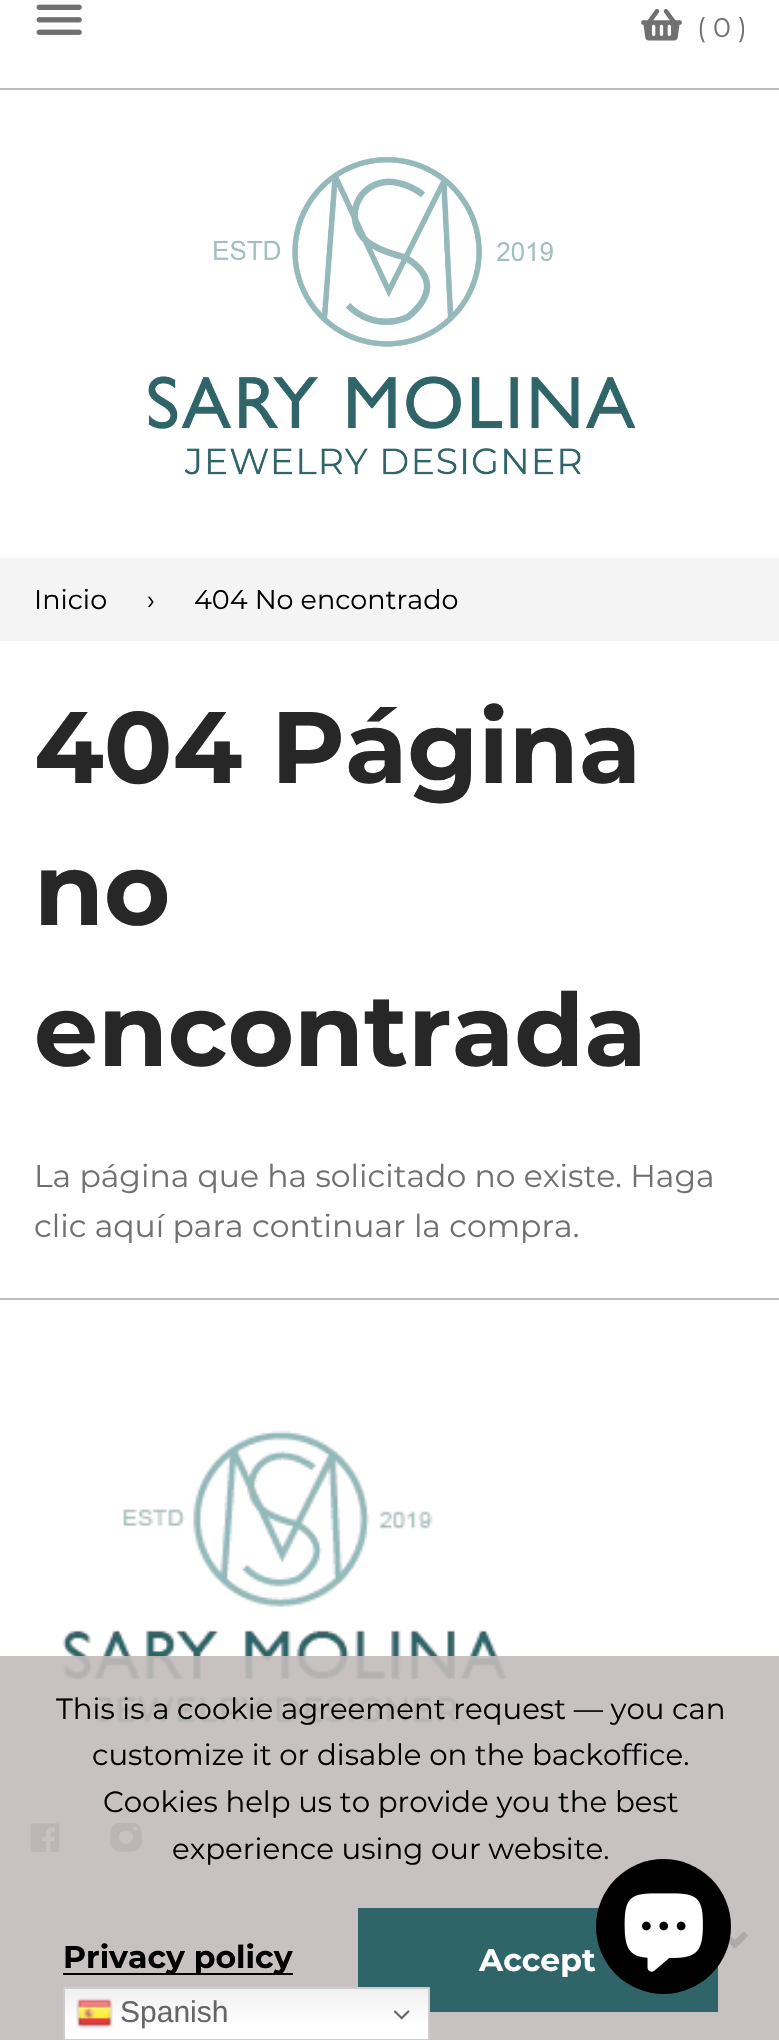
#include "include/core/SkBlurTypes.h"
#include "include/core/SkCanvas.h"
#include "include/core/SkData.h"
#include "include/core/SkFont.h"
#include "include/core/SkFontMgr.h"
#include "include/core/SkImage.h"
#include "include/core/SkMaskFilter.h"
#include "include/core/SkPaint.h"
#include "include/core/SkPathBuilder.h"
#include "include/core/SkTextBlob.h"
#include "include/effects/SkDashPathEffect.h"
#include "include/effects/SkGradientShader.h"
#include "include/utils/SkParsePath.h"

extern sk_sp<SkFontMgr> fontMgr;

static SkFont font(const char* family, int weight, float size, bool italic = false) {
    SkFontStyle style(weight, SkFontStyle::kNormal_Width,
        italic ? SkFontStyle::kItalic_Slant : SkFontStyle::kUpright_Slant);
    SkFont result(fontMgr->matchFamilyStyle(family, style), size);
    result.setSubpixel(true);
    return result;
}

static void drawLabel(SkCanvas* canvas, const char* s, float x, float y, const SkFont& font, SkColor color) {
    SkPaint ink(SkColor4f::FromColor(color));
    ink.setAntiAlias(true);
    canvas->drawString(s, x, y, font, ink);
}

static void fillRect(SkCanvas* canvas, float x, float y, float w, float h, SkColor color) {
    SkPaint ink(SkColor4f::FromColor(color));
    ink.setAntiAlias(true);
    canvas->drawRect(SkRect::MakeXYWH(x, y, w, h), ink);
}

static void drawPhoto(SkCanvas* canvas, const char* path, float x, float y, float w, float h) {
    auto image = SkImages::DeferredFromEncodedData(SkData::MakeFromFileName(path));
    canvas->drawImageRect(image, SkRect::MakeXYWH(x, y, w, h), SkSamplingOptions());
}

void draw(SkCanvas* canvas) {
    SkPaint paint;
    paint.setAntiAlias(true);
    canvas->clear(0xFFFFFFFF);
    drawPhoto(canvas, "assets/img1.png", 36, 4, 46, 31);
    drawPhoto(canvas, "assets/img2.png", 641, 9, 41, 32);
    SkFont font1 = font("Montserrat", 400, 27);
    drawLabel(canvas, "( 0 )", 697, 37, font1, 0xFF707070);
    fillRect(canvas, 0, 88, 779, 2, 0xFFC1BABA);
    drawPhoto(canvas, "assets/img3.png", 148, 157, 488, 318);
    fillRect(canvas, 0, 558, 779, 83, 0xFFF4F4F4);
    drawLabel(canvas, "Inicio", 34, 609, font1, 0xFF000000);
    drawLabel(canvas, "›", 147, 609, font1, 0xFF000000);
    drawLabel(canvas, "404 No encontrado", 194, 609, font1, 0xFF000000);
    SkFont font2 = font("Montserrat", 700, 101.25f);
    drawLabel(canvas, "404 Página", 34, 783, font2, 0xFF272727);
    drawLabel(canvas, "no", 34, 925, font2, 0xFF272727);
    drawLabel(canvas, "encontrada", 34, 1066, font2, 0xFF272727);
    SkFont font3 = font("Montserrat", 400, 31.5f);
    drawLabel(canvas, "La página que ha solicitado no existe. Haga", 34, 1187, font3, 0xFF707070);
    drawLabel(canvas, "clic aquí para continuar la compra.", 34, 1237, font3, 0xFF707070);
    fillRect(canvas, 0, 1298, 779, 2, 0xFFC1BABA);
    drawPhoto(canvas, "assets/img4.png", 62, 1430, 445, 294);
    drawPhoto(canvas, "assets/img5.png", 30, 1823, 30, 29);
    drawPhoto(canvas, "assets/img6.png", 110, 1823, 32, 29);
    fillRect(canvas, 34, 1996, 713, 2, 0xFFF8F8FA);
    drawPhoto(canvas, "assets/img7.png", 729, 1931, 19, 18);
    fillRect(canvas, 0, 1656, 779, 384, 0xE6C1BABA);
    SkFont font4 = font("Montserrat", 400, 29.25f);
    drawLabel(canvas, "This is a cookie agreement request — you can", 56, 1719, font4, 0xFF000000);
    drawLabel(canvas, "customize it or disable on the backoffice.", 92, 1765, font4, 0xFF000000);
    drawLabel(canvas, "Cookies help us to provide you the best", 103, 1812, font4, 0xFF000000);
    drawLabel(canvas, "experience using our website.", 172, 1859, font4, 0xFF000000);
    SkFont font5 = font("Montserrat", 700, 31.5f);
    drawLabel(canvas, "Privacy policy", 63, 1968, font5, 0xFF000000);
    fillRect(canvas, 63, 1973, 230, 2, 0xFF000000);
    fillRect(canvas, 358, 1908, 360, 104, 0xFF2F6468);
    drawLabel(canvas, "Accept", 479, 1971, font5, 0xFFFFFFFF);
    paint.setColor(0xFF000000);
    canvas->drawCircle(663.5f, 1926.5f, 67.5f, paint);
    drawPhoto(canvas, "assets/img8.png", 624, 1893, 79, 79);
    {
        const SkColor colors[] = {0xFFEFEFEF, 0xFFFFFFFF};
        const float stops[] = {0, 0.7f};
        const SkPoint ends[] = {{246, 1987}, {246, 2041}};
        paint.setShader(SkGradientShader::MakeLinear(ends, colors, stops, 2, SkTileMode::kClamp));
        paint.setAlpha(255);
    }
    canvas->drawRect(SkRect::MakeXYWH(65, 1989, 363, 50), paint);
    paint.setStroke(true);
    paint.setStrokeWidth(2);
    paint.setShader(nullptr);
    paint.setColor(0xFFCCCCCC);
    canvas->drawRect(SkRect::MakeXYWH(64, 1988, 365, 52), paint);
    drawPhoto(canvas, "assets/img9.png", 76, 1998, 37, 31);
    SkFont font6 = font("Liberation Sans", 400, 30);
    drawLabel(canvas, "Spanish", 120, 2022, font6, 0xFF666666);
    drawPhoto(canvas, "assets/img10.png", 394, 2010, 16, 10);
}
